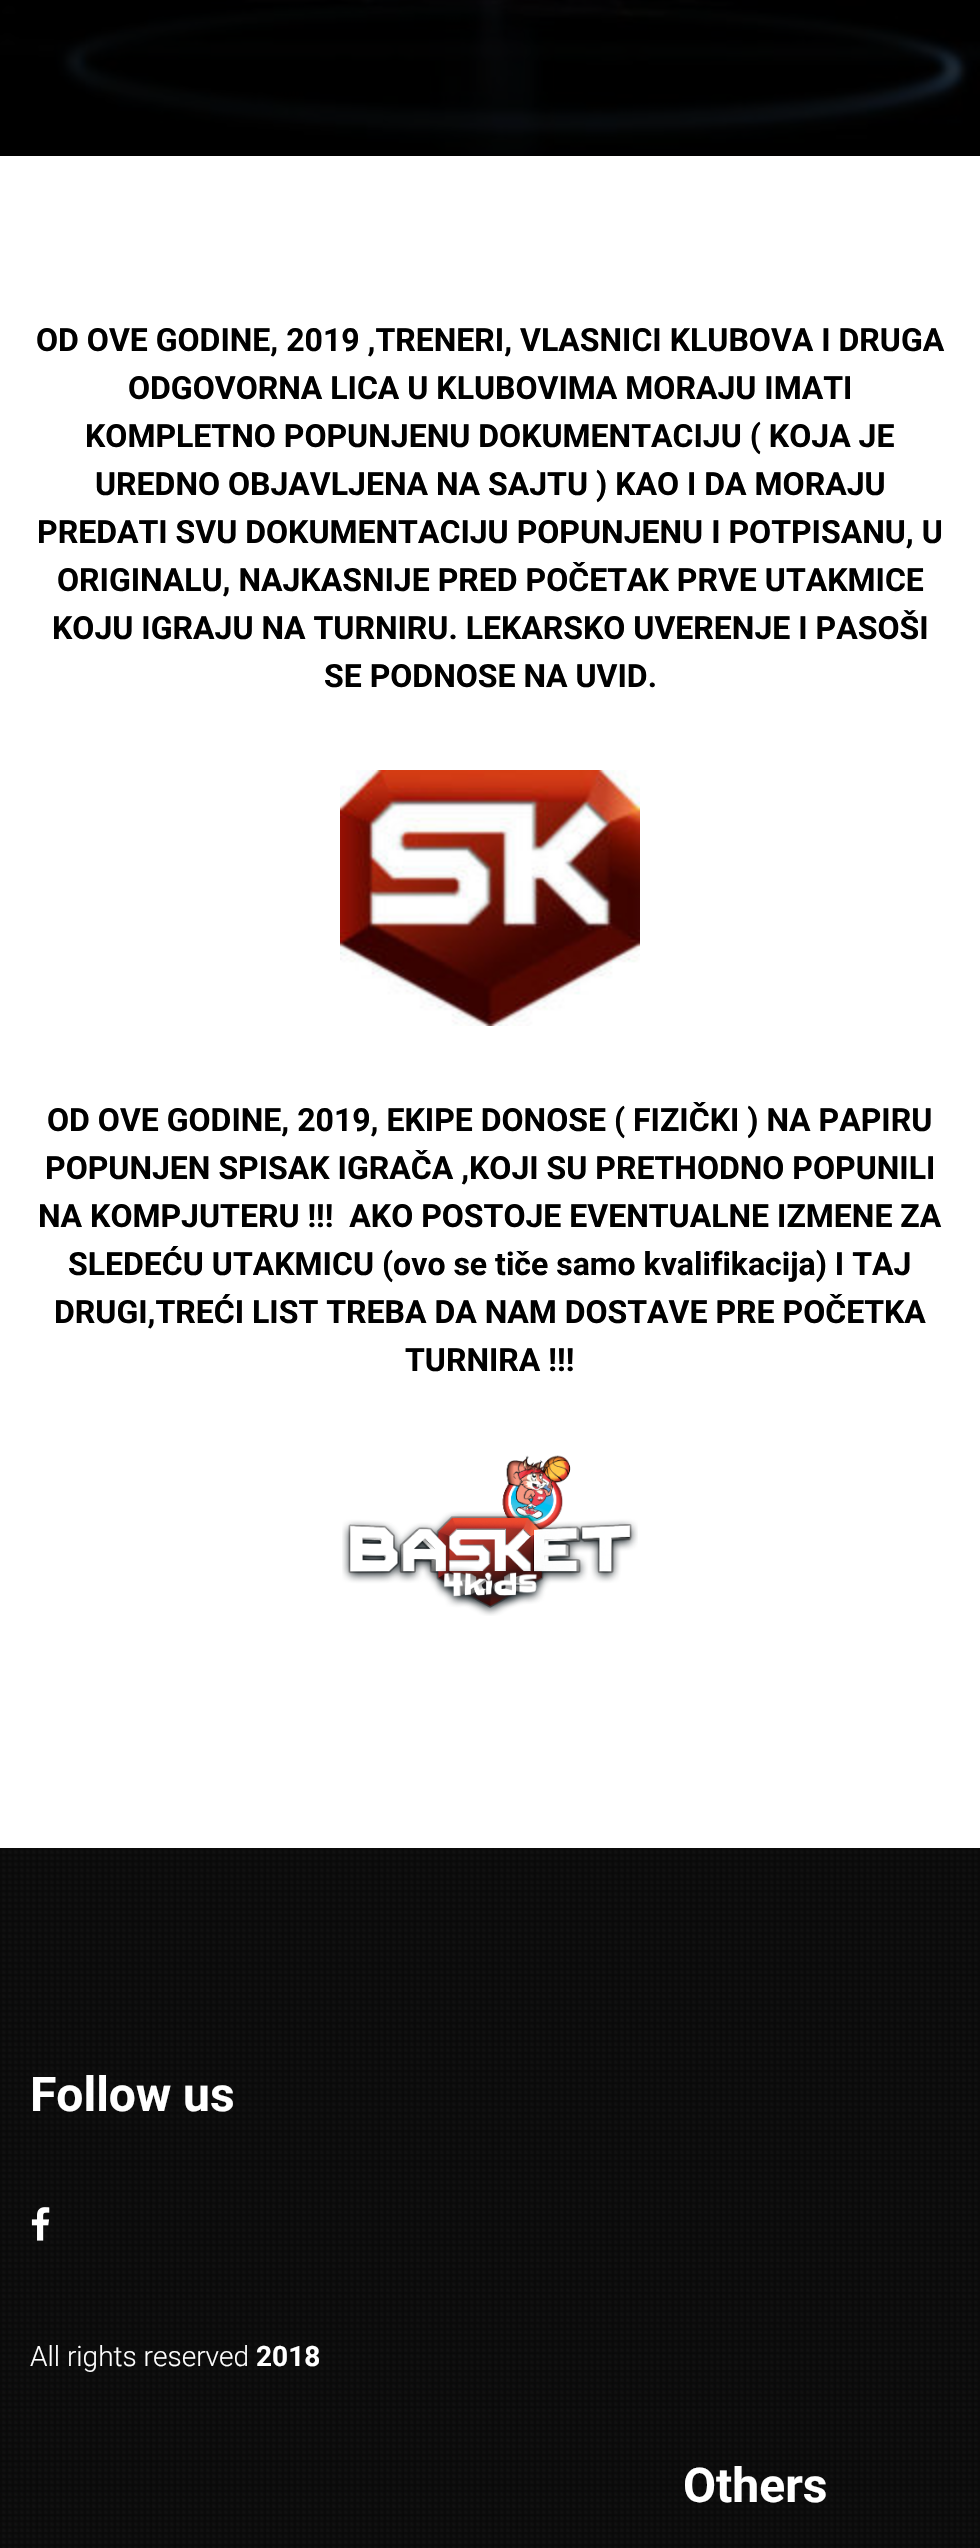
#include "include/core/SkBlurTypes.h"
#include "include/core/SkCanvas.h"
#include "include/core/SkData.h"
#include "include/core/SkFont.h"
#include "include/core/SkFontMgr.h"
#include "include/core/SkImage.h"
#include "include/core/SkMaskFilter.h"
#include "include/core/SkPaint.h"
#include "include/core/SkPathBuilder.h"
#include "include/core/SkTextBlob.h"
#include "include/effects/SkDashPathEffect.h"
#include "include/effects/SkGradientShader.h"
#include "include/utils/SkParsePath.h"

extern sk_sp<SkFontMgr> fontMgr;

static SkFont font(const char* family, int weight, float size, bool italic = false) {
    SkFontStyle style(weight, SkFontStyle::kNormal_Width,
        italic ? SkFontStyle::kItalic_Slant : SkFontStyle::kUpright_Slant);
    SkFont result(fontMgr->matchFamilyStyle(family, style), size);
    result.setSubpixel(true);
    return result;
}

static void drawLabel(SkCanvas* canvas, const char* s, float x, float y, const SkFont& font, SkColor color) {
    SkPaint ink(SkColor4f::FromColor(color));
    ink.setAntiAlias(true);
    canvas->drawString(s, x, y, font, ink);
}

static void fillRect(SkCanvas* canvas, float x, float y, float w, float h, SkColor color) {
    SkPaint ink(SkColor4f::FromColor(color));
    ink.setAntiAlias(true);
    canvas->drawRect(SkRect::MakeXYWH(x, y, w, h), ink);
}

static void drawPhoto(SkCanvas* canvas, const char* path, float x, float y, float w, float h) {
    auto image = SkImages::DeferredFromEncodedData(SkData::MakeFromFileName(path));
    canvas->drawImageRect(image, SkRect::MakeXYWH(x, y, w, h), SkSamplingOptions());
}

void draw(SkCanvas* canvas) {
    SkPaint paint;
    paint.setAntiAlias(true);
    canvas->clear(0xFFFFFFFF);
    drawPhoto(canvas, "assets/img1.png", 0, 0, 980, 156);
    SkFont font1 = font("Roboto", 700, 32);
    drawLabel(canvas, "OD OVE GODINE, 2019 ,TRENERI, VLASNICI KLUBOVA I DRUGA", 36, 351, font1, 0xFF000000);
    drawLabel(canvas, "ODGOVORNA LICA U KLUBOVIMA MORAJU IMATI", 128, 399, font1, 0xFF000000);
    drawLabel(canvas, "KOMPLETNO POPUNJENU DOKUMENTACIJU ( KOJA JE", 85, 447, font1, 0xFF000000);
    drawLabel(canvas, "UREDNO OBJAVLJENA NA SAJTU ) KAO I DA MORAJU", 95, 495, font1, 0xFF000000);
    drawLabel(canvas, "PREDATI SVU DOKUMENTACIJU POPUNJENU I POTPISANU, U", 37, 543, font1, 0xFF000000);
    drawLabel(canvas, "ORIGINALU, NAJKASNIJE PRED POČETAK PRVE UTAKMICE", 57, 591, font1, 0xFF000000);
    drawLabel(canvas, "KOJU IGRAJU NA TURNIRU. LEKARSKO UVERENJE I PASOŠI", 52, 639, font1, 0xFF000000);
    drawLabel(canvas, "SE PODNOSE NA UVID.", 324, 687, font1, 0xFF000000);
    drawPhoto(canvas, "assets/img2.png", 340, 770, 300, 256);
    drawLabel(canvas, "OD OVE GODINE, 2019, EKIPE DONOSE ( FIZIČKI ) NA PAPIRU", 47, 1131, font1, 0xFF000000);
    drawLabel(canvas, "POPUNJEN SPISAK IGRAČA ,KOJI SU PRETHODNO POPUNILI", 45, 1179, font1, 0xFF000000);
    drawLabel(canvas, "NA KOMPJUTERU !!!  AKO POSTOJE EVENTUALNE IZMENE ZA", 38, 1227, font1, 0xFF000000);
    drawLabel(canvas, "SLEDEĆU UTAKMICU (ovo se tiče samo kvalifikacija) I TAJ", 68, 1275, font1, 0xFF000000);
    drawLabel(canvas, "DRUGI,TREĆI LIST TREBA DA NAM DOSTAVE PRE POČETKA", 54, 1323, font1, 0xFF000000);
    drawLabel(canvas, "TURNIRA !!!", 405, 1371, font1, 0xFF000000);
    drawPhoto(canvas, "assets/img3.png", 342, 1455, 296, 161);
    fillRect(canvas, 0, 1848, 980, 700, 0xFF070707);
    drawPhoto(canvas, "assets/img4.png", 0, 1848, 980, 700);
    SkFont font2 = font("Roboto", 700, 48);
    drawLabel(canvas, "Follow us", 30, 2111, font2, 0xFFFFFFFF);
    drawPhoto(canvas, "assets/img5.png", 31, 2207, 19, 34);
    SkFont font3 = font("Roboto", 300, 28);
    drawLabel(canvas, "All rights reserved", 30, 2366, font3, 0xFFFFFFFF);
    SkFont font4 = font("Roboto", 700, 28);
    drawLabel(canvas, "2018", 256, 2366, font4, 0xFFFFFFFF);
    drawLabel(canvas, "Others", 683, 2502, font2, 0xFFFFFFFF);
}
